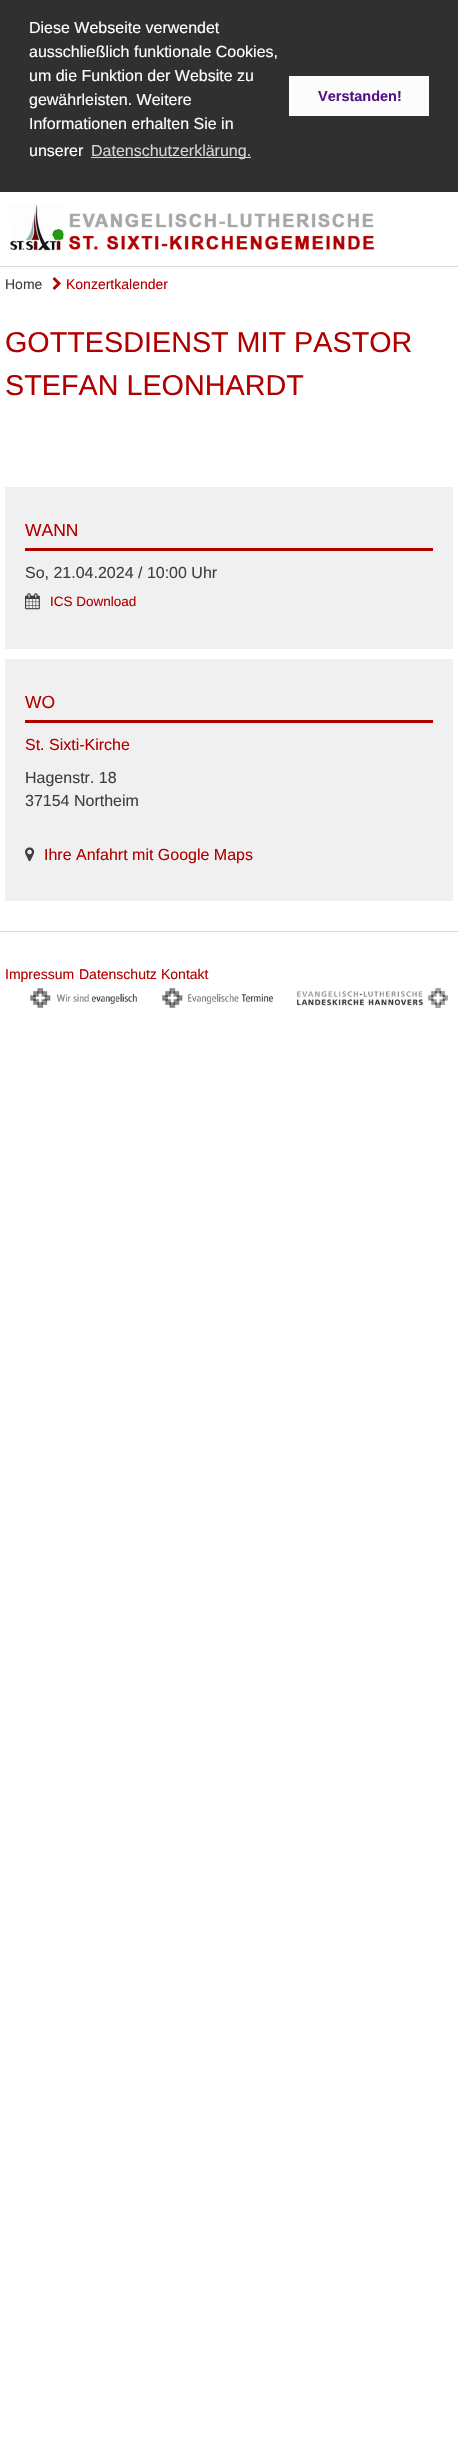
#include "include/core/SkBlurTypes.h"
#include "include/core/SkCanvas.h"
#include "include/core/SkData.h"
#include "include/core/SkFont.h"
#include "include/core/SkFontMgr.h"
#include "include/core/SkImage.h"
#include "include/core/SkMaskFilter.h"
#include "include/core/SkPaint.h"
#include "include/core/SkPathBuilder.h"
#include "include/core/SkTextBlob.h"
#include "include/effects/SkDashPathEffect.h"
#include "include/effects/SkGradientShader.h"
#include "include/utils/SkParsePath.h"

extern sk_sp<SkFontMgr> fontMgr;

static SkFont font(const char* family, int weight, float size, bool italic = false) {
    SkFontStyle style(weight, SkFontStyle::kNormal_Width,
        italic ? SkFontStyle::kItalic_Slant : SkFontStyle::kUpright_Slant);
    SkFont result(fontMgr->matchFamilyStyle(family, style), size);
    result.setSubpixel(true);
    return result;
}

static void drawLabel(SkCanvas* canvas, const char* s, float x, float y, const SkFont& font, SkColor color) {
    SkPaint ink(SkColor4f::FromColor(color));
    ink.setAntiAlias(true);
    canvas->drawString(s, x, y, font, ink);
}

static void fillRect(SkCanvas* canvas, float x, float y, float w, float h, SkColor color) {
    SkPaint ink(SkColor4f::FromColor(color));
    ink.setAntiAlias(true);
    canvas->drawRect(SkRect::MakeXYWH(x, y, w, h), ink);
}

static void drawPhoto(SkCanvas* canvas, const char* path, float x, float y, float w, float h) {
    auto image = SkImages::DeferredFromEncodedData(SkData::MakeFromFileName(path));
    canvas->drawImageRect(image, SkRect::MakeXYWH(x, y, w, h), SkSamplingOptions());
}

void draw(SkCanvas* canvas) {
    SkPaint paint;
    paint.setAntiAlias(true);
    canvas->clear(0xFFFFFFFF);
    fillRect(canvas, 0, 0, 458, 192, 0xFF303030);
    SkFont font1 = font("Liberation Sans", 400, 16);
    drawLabel(canvas, "Diese Webseite verwendet", 29, 33, font1, 0xFFFFFFFF);
    drawLabel(canvas, "ausschließlich funktionale Cookies,", 29, 57, font1, 0xFFFFFFFF);
    drawLabel(canvas, "um die Funktion der Website zu", 29, 81, font1, 0xFFFFFFFF);
    drawLabel(canvas, "gewährleisten. Weitere", 29, 105, font1, 0xFFFFFFFF);
    drawLabel(canvas, "Informationen erhalten Sie in", 29, 129, font1, 0xFFFFFFFF);
    drawLabel(canvas, "unserer", 29, 156, font1, 0xFFFFFFFF);
    fillRect(canvas, 91, 157, 160, 1, 0xFFD6D6D6);
    drawLabel(canvas, "Datenschutzerklärung.", 91, 156, font1, 0xFFD6D6D6);
    fillRect(canvas, 289, 76, 140, 40, 0xFFFCFCFC);
    SkFont font2 = font("Liberation Sans", 700, 14.5f);
    drawLabel(canvas, "Verstanden!", 318, 101, font2, 0xFF551285);
    fillRect(canvas, 0, 266, 458, 1, 0xFFD8D8D8);
    drawPhoto(canvas, "assets/img1.png", 10, 205, 365, 46);
    SkFont font3 = font("Liberation Sans", 400, 14);
    drawLabel(canvas, "Home", 5, 289, font3, 0xFF3F3F3F);
    drawPhoto(canvas, "assets/img2.png", 52, 277, 9, 13);
    drawLabel(canvas, "Konzertkalender", 66, 289, font3, 0xFFB20000);
    SkFont font4 = font("Liberation Sans", 400, 28.75f);
    drawLabel(canvas, "GOTTESDIENST MIT PASTOR", 5, 352, font4, 0xFFB20000);
    drawLabel(canvas, "STEFAN LEONHARDT", 5, 395, font4, 0xFFB20000);
    fillRect(canvas, 5, 487, 448, 162, 0xFFF0F0F0);
    fillRect(canvas, 25, 548, 408, 3, 0xFFB20000);
    SkFont font5 = font("Liberation Sans", 400, 17.5f);
    drawLabel(canvas, "WANN", 25, 536, font5, 0xFFB20000);
    drawLabel(canvas, "So, 21.04.2024 / 10:00 Uhr", 25, 578, font1, 0xFF3F3F3F);
    drawPhoto(canvas, "assets/img3.png", 25, 593, 15, 17);
    SkFont font6 = font("Liberation Sans", 400, 13.5f);
    drawLabel(canvas, "ICS Download", 50, 606, font6, 0xFFB20000);
    fillRect(canvas, 5, 659, 448, 242, 0xFFF0F0F0);
    fillRect(canvas, 25, 720, 408, 3, 0xFFB20000);
    drawLabel(canvas, "WO", 25, 708, font5, 0xFFB20000);
    drawLabel(canvas, "St. Sixti-Kirche", 25, 750, font1, 0xFFB20000);
    drawLabel(canvas, "Hagenstr. 18", 25, 783, font1, 0xFF3F3F3F);
    drawLabel(canvas, "37154 Northeim", 25, 806, font1, 0xFF3F3F3F);
    drawPhoto(canvas, "assets/img4.png", 25, 847, 10, 15);
    drawLabel(canvas, "Ihre Anfahrt mit Google Maps", 44, 860, font1, 0xFFB20000);
    fillRect(canvas, 0, 931, 458, 1, 0xFFD8D8D8);
    drawLabel(canvas, "Impressum", 5, 979, font3, 0xFFB20000);
    drawLabel(canvas, "Datenschutz", 79, 979, font3, 0xFFB20000);
    drawLabel(canvas, "Kontakt", 161, 979, font3, 0xFFB20000);
    drawPhoto(canvas, "assets/img5.png", 30, 988, 107, 20);
    drawPhoto(canvas, "assets/img6.png", 162, 988, 111, 20);
    drawPhoto(canvas, "assets/img7.png", 297, 988, 151, 20);
}
